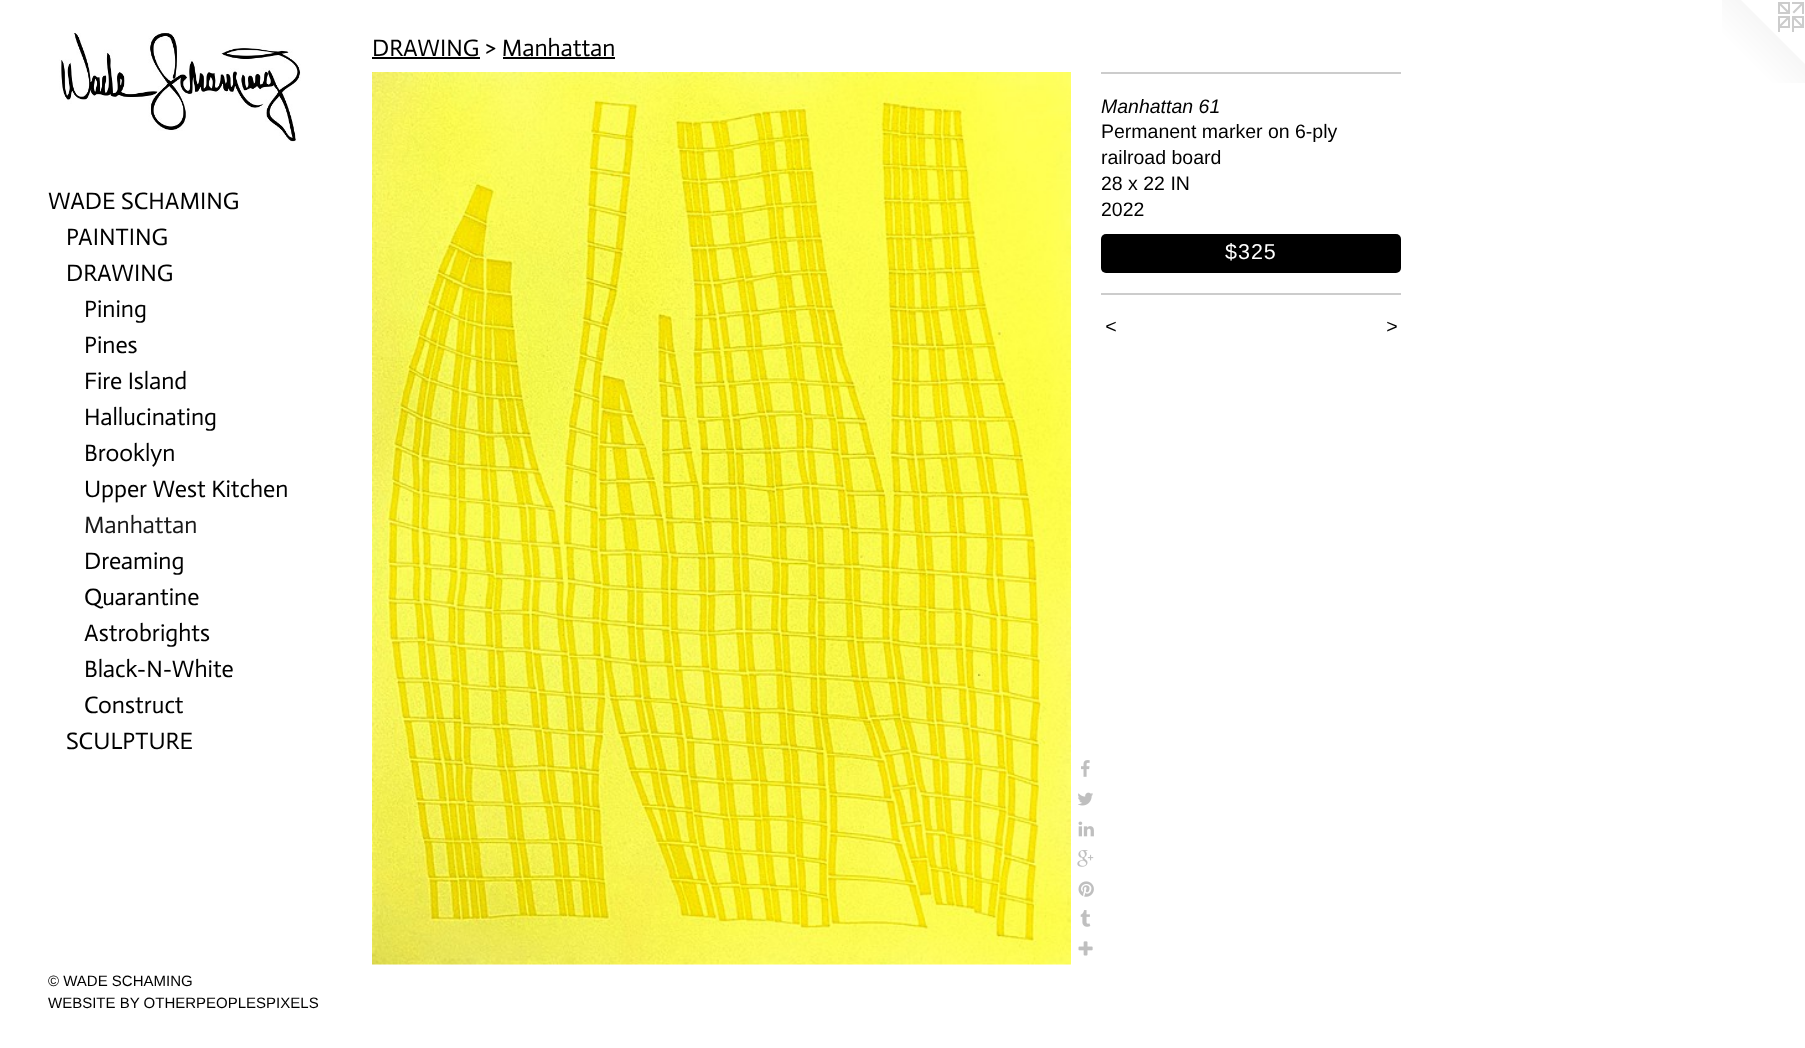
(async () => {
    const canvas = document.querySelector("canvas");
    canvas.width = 1805;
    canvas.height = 1048;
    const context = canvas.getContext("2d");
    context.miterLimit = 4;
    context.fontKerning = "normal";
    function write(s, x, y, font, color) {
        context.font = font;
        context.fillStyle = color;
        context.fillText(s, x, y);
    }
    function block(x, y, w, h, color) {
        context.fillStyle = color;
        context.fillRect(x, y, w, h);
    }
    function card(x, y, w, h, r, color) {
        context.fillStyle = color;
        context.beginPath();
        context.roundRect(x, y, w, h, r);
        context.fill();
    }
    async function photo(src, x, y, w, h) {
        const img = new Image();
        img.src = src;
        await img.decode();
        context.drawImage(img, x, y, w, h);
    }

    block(0, 0, 1805, 1048, "rgb(255, 255, 255)");
    await photo("media/1.png", 59, 33, 242, 109);
    write("WADE SCHAMING", 48, 209, "24px Actor", "rgb(0, 0, 0)");
    write("PAINTING", 66, 245, "24px Actor", "rgb(0, 0, 0)");
    write("DRAWING", 66, 281, "24px Actor", "rgb(0, 0, 0)");
    write("Pining", 84, 317, "24px Actor", "rgb(0, 0, 0)");
    write("Pines", 84, 353, "24px Actor", "rgb(0, 0, 0)");
    write("Fire Island", 84, 389, "24px Actor", "rgb(0, 0, 0)");
    write("Hallucinating", 84, 425, "24px Actor", "rgb(0, 0, 0)");
    write("Brooklyn", 84, 461, "24px Actor", "rgb(0, 0, 0)");
    write("Upper West Kitchen", 84, 497, "24px Actor", "rgb(0, 0, 0)");
    write("Manhattan", 84, 533, "24px Actor", "rgb(26, 26, 26)");
    write("Dreaming", 84, 569, "24px Actor", "rgb(0, 0, 0)");
    write("Quarantine", 84, 605, "24px Actor", "rgb(0, 0, 0)");
    write("Astrobrights", 84, 641, "24px Actor", "rgb(0, 0, 0)");
    write("Black-N-White", 84, 677, "24px Actor", "rgb(0, 0, 0)");
    write("Construct", 84, 713, "24px Actor", "rgb(0, 0, 0)");
    write("SCULPTURE", 66, 749, "24px Actor", "rgb(0, 0, 0)");
    write("© WADE SCHAMING", 48, 986, "15px Liberation Sans", "rgb(0, 0, 0)");
    write("WEBSITE BY OTHERPEOPLESPIXELS", 48, 1008, "15px Liberation Sans", "rgb(0, 0, 0)");
    write("DRAWING > Manhattan", 372, 56, "24px Actor", "rgb(0, 0, 0)");
    block(372, 57, 108, 2, "rgb(0, 0, 0)");
    block(503, 57, 112, 2, "rgb(0, 0, 0)");
    await photo("media/2.png", 372, 72, 699, 893);
    await photo("media/3.png", 1081, 760, 9, 17);
    await photo("media/4.png", 1078, 792, 15, 14);
    await photo("media/5.png", 1078, 821, 16, 16);
    await photo("media/6.png", 1077, 850, 17, 17);
    await photo("media/7.png", 1078, 881, 16, 16);
    await photo("media/8.png", 1080, 910, 11, 17);
    await photo("media/9.png", 1078, 941, 15, 15);
    block(1101, 72, 300, 2, "rgb(204, 204, 204)");
    write("Manhattan 61", 1101, 113, "italic 19.5px Liberation Sans", "rgb(0, 0, 0)");
    write("Permanent marker on 6-ply", 1101, 138, "19.5px Liberation Sans", "rgb(0, 0, 0)");
    write("railroad board", 1101, 164, "19.5px Liberation Sans", "rgb(0, 0, 0)");
    write("28 x 22 IN", 1101, 190, "19.5px Liberation Sans", "rgb(0, 0, 0)");
    write("2022", 1101, 216, "19.5px Liberation Sans", "rgb(0, 0, 0)");
    card(1101, 234, 300, 39, 5, "rgb(0, 0, 0)");
    context.letterSpacing = "1px";
    write("$325", 1225, 259, "21.5px Liberation Sans", "rgb(255, 255, 255)");
    block(1101, 293, 300, 2, "rgb(204, 204, 204)");
    context.letterSpacing = "2px";
    write("<", 1105, 333, "italic 19.5px Liberation Sans", "rgb(0, 0, 0)");
    write(">", 1386, 333, "italic 19.5px Liberation Sans", "rgb(0, 0, 0)");
    await photo("media/10.png", 1722, 0, 83, 83);
})();
